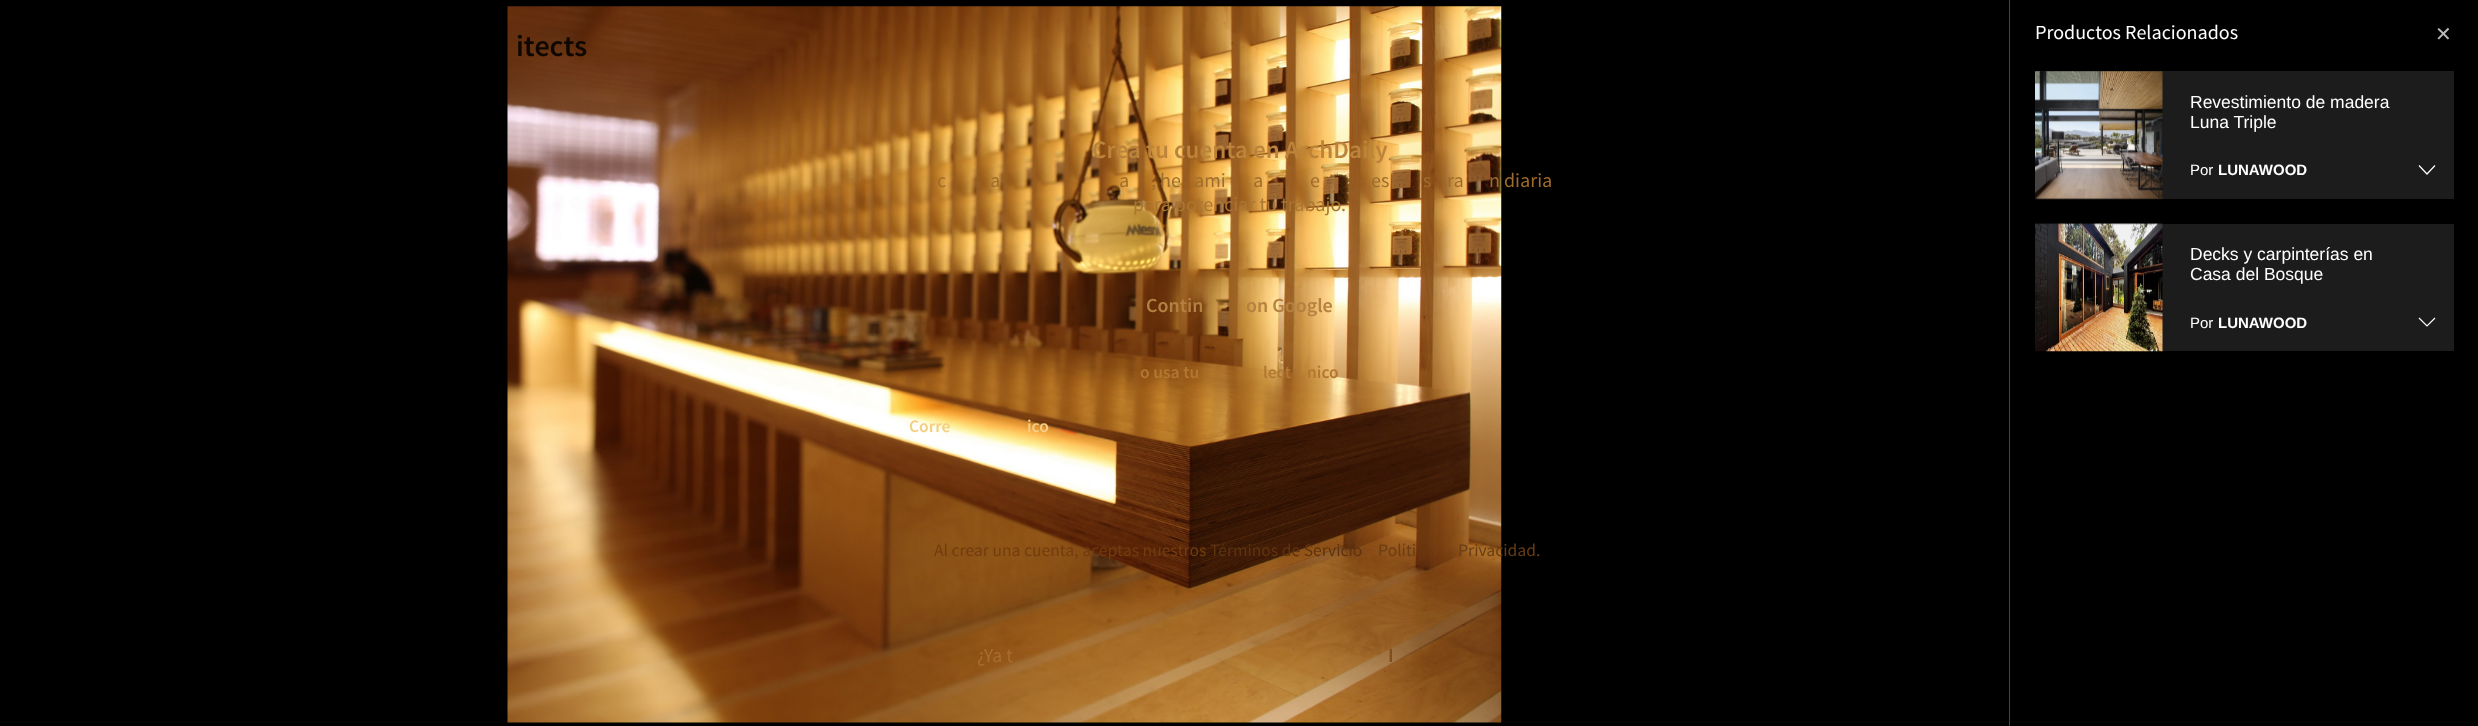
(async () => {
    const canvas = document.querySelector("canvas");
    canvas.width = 2478;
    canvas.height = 726;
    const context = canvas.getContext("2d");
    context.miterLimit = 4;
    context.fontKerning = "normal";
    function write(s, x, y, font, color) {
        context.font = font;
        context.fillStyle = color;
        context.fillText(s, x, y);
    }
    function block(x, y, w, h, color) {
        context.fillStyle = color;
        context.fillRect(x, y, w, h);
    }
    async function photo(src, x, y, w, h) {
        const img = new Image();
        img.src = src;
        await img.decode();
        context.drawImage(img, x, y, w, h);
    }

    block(0, 0, 2478, 726, "rgb(0, 0, 0)");
    await photo("media/1.png", 507, 6, 995, 717);
    write("itects", 516, 56, "600 30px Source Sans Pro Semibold", "rgb(15, 7, 2)");
    block(2009, 0, 1, 726, "rgb(68, 68, 68)");
    write("Productos Relacionados", 2035, 39, "20px Source Sans Pro", "rgb(255, 255, 255)");
    block(2035, 71, 419, 128, "rgb(28, 28, 28)");
    await photo("media/2.png", 2035, 71, 128, 129);
    write("Revestimiento de madera", 2190, 108, "17.5px Liberation Sans", "rgb(255, 255, 255)");
    write("Luna Triple", 2190, 128, "17.5px Liberation Sans", "rgb(255, 255, 255)");
    write("Por", 2190, 175, "15px Liberation Sans", "rgb(255, 255, 255)");
    write("LUNAWOOD", 2218, 175, "bold 15px Liberation Sans", "rgb(255, 255, 255)");
    context.beginPath();
    context.moveTo(2419, 165.5);
    context.lineTo(2427, 174);
    context.lineTo(2435, 165.5);
    context.strokeStyle = "rgb(255, 255, 255)";
    context.lineWidth = 1.2;
    context.stroke();
    block(2035, 224, 419, 127, "rgb(28, 28, 28)");
    await photo("media/3.png", 2035, 223, 128, 129);
    write("Decks y carpinterías en", 2190, 260, "17.5px Liberation Sans", "rgb(255, 255, 255)");
    write("Casa del Bosque", 2190, 280, "17.5px Liberation Sans", "rgb(255, 255, 255)");
    write("Por", 2190, 328, "15px Liberation Sans", "rgb(255, 255, 255)");
    write("LUNAWOOD", 2218, 328, "bold 15px Liberation Sans", "rgb(255, 255, 255)");
    context.beginPath();
    context.moveTo(2419, 318);
    context.lineTo(2427, 326);
    context.lineTo(2435, 318);
    context.stroke();
    write("✕", 2435, 41, "20px DejaVu Sans", "rgb(187, 187, 187)");
    write("Crea tu cuenta en ArchDaily", 1092, 158, "600 25px Source Sans Pro Semibold", "rgb(188, 132, 59)");
    write("c", 937, 187, "20px Source Sans Pro", "rgb(160, 108, 43)");
    write("a", 990, 187, "20px Source Sans Pro", "rgb(160, 108, 43)");
    write("a", 1119, 187, "20px Source Sans Pro", "rgb(160, 108, 43)");
    write(", he", 1151, 187, "20px Source Sans Pro", "rgb(160, 108, 43)");
    write("ami", 1194, 187, "20px Source Sans Pro", "rgb(160, 108, 43)");
    write("a", 1253, 187, "20px Source Sans Pro", "rgb(160, 108, 43)");
    write("e", 1310, 187, "20px Source Sans Pro", "rgb(160, 108, 43)");
    write("es", 1371, 187, "20px Source Sans Pro", "rgb(160, 108, 43)");
    write("s", 1423, 187, "20px Source Sans Pro", "rgb(160, 108, 43)");
    write("ra", 1447, 187, "20px Source Sans Pro", "rgb(160, 108, 43)");
    write("n diaria", 1489, 187, "20px Source Sans Pro", "rgb(160, 108, 43)");
    write("para potenciar tu trabajo.", 1133, 211, "20px Source Sans Pro", "rgb(170, 118, 52)");
    write("Contin", 1146, 312, "600 20px Source Sans Pro Semibold", "rgb(180, 129, 65)");
    write("on Google", 1246, 312, "600 20px Source Sans Pro Semibold", "rgb(180, 129, 65)");
    write("o usa tu", 1140, 378, "600 17.5px Source Sans Pro Semibold", "rgb(178, 120, 50)");
    write("lect", 1263, 378, "600 17.5px Source Sans Pro Semibold", "rgb(178, 120, 50)");
    write("nico", 1307, 378, "600 17.5px Source Sans Pro Semibold", "rgb(178, 120, 50)");
    write("Corre", 909, 432, "600 17.5px Source Sans Pro Semibold", "rgb(244, 206, 131)");
    write("ico", 1027, 432, "600 17.5px Source Sans Pro Semibold", "rgb(244, 206, 131)");
    write("Al crear una cuenta, aceptas nuestros", 934, 556, "17.5px Source Sans Pro", "rgb(114, 60, 15)");
    write("Términos de Servicio", 1210, 556, "17.5px Source Sans Pro", "rgb(96, 51, 15)");
    write("Políti", 1378, 556, "17.5px Source Sans Pro", "rgb(106, 61, 20)");
    write("Privacidad.", 1458, 556, "17.5px Source Sans Pro", "rgb(106, 61, 20)");
    write("¿Ya t", 977, 662, "20px Source Sans Pro", "rgb(167, 110, 44)");
    write("I", 1388, 662, "600 20px Source Sans Pro Semibold", "rgb(130, 77, 28)");
})();
